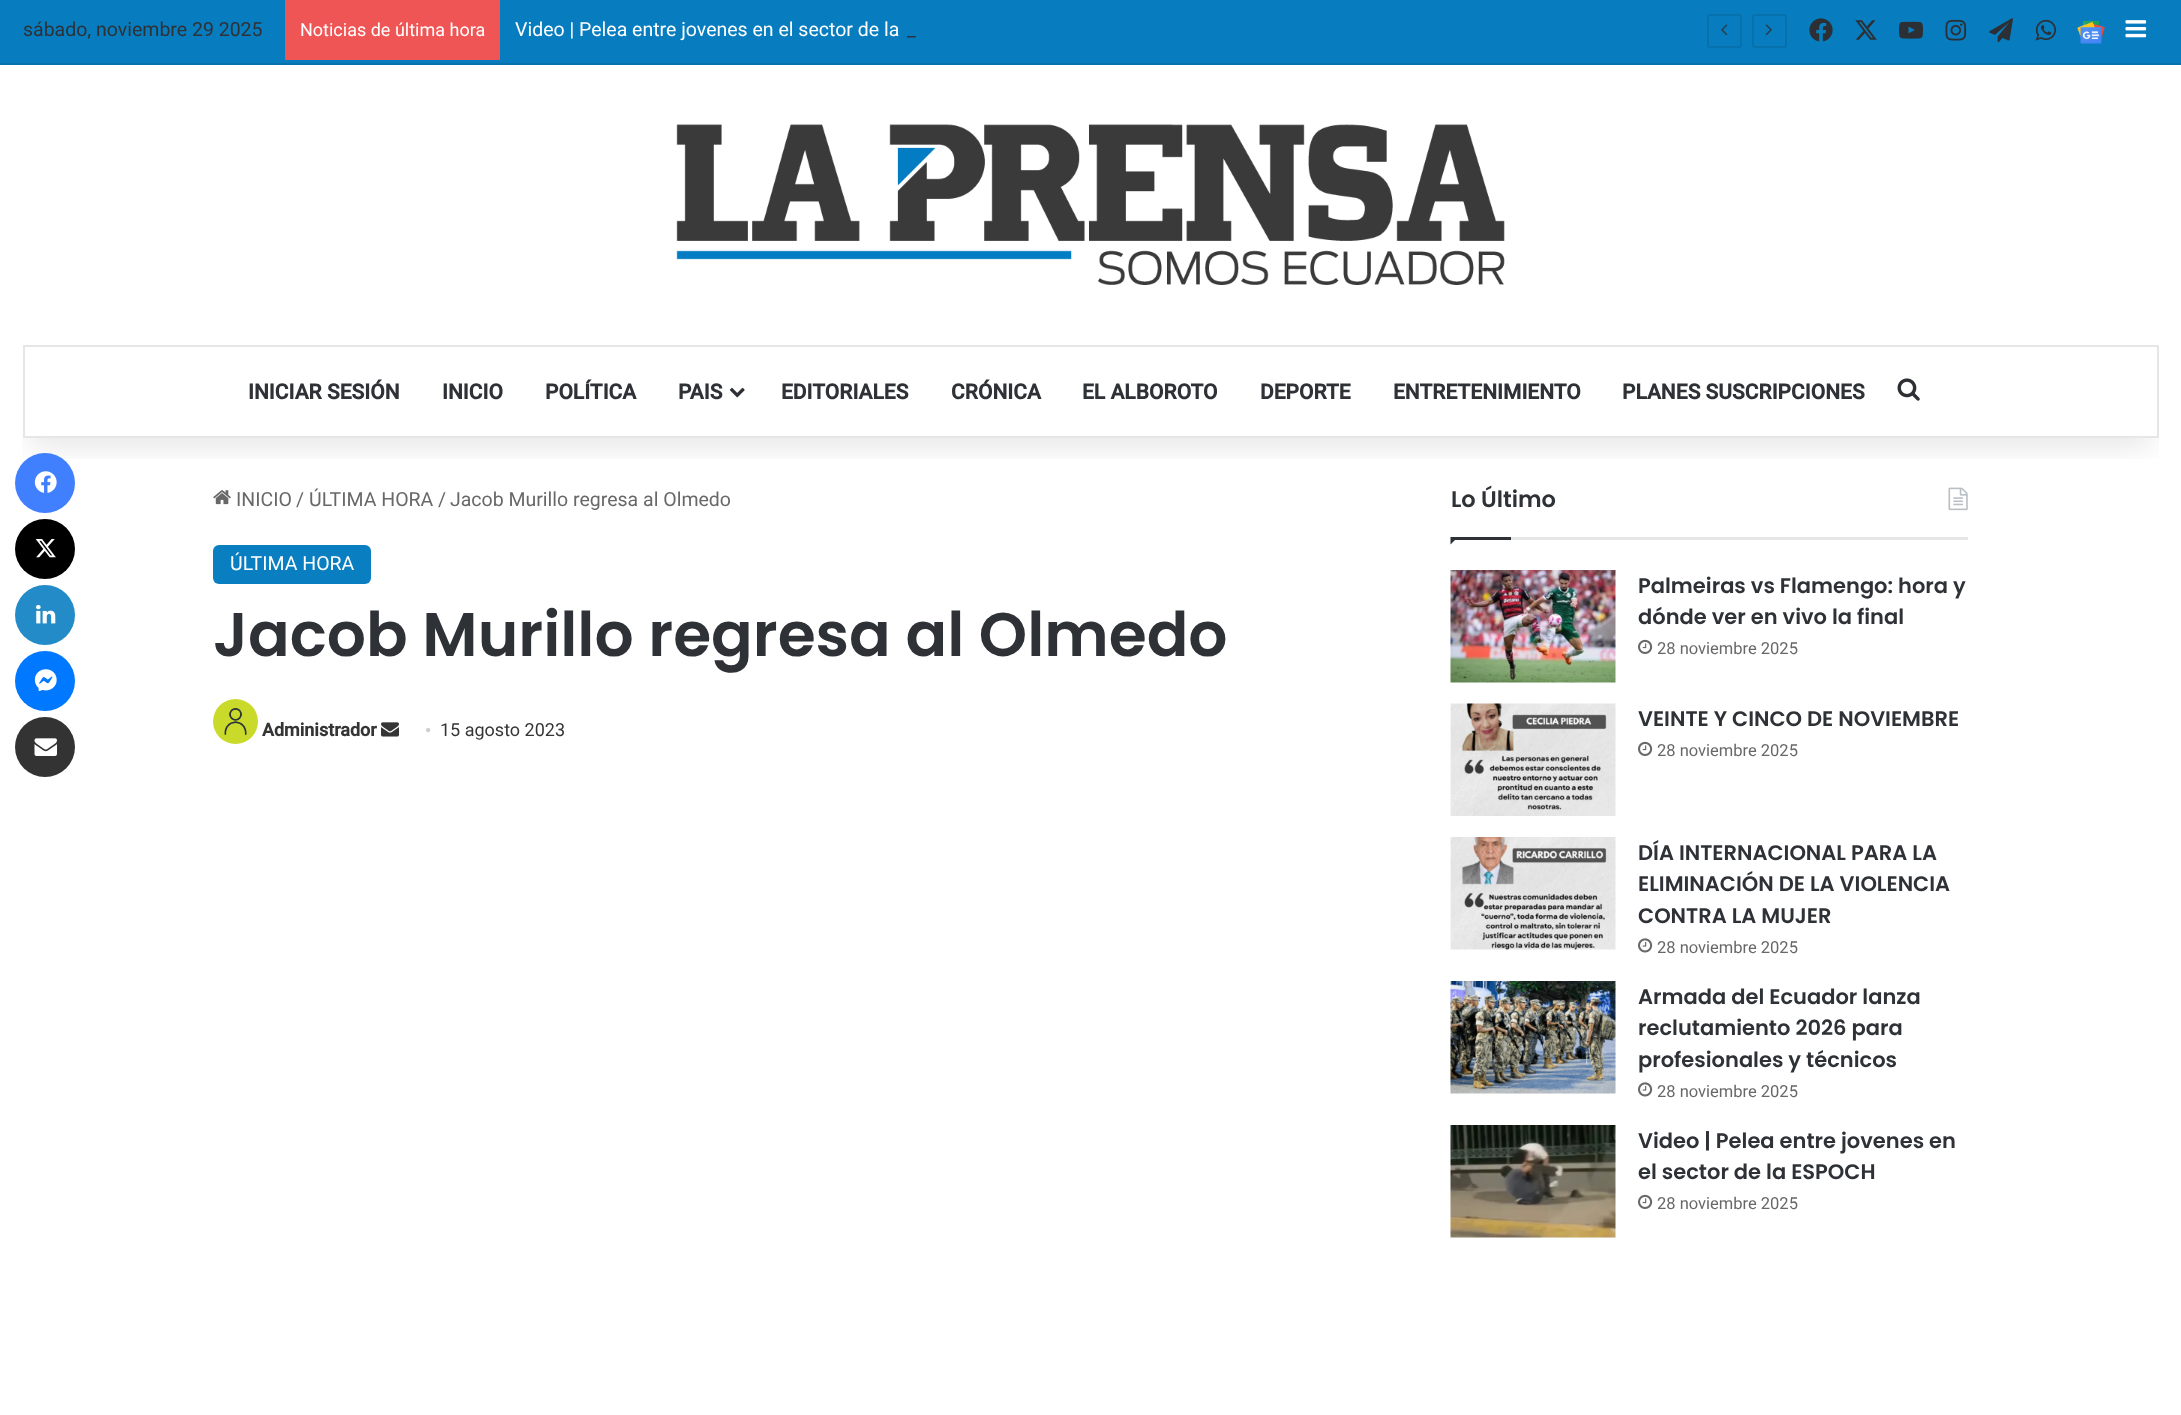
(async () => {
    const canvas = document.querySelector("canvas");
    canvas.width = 2181;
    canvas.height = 1415;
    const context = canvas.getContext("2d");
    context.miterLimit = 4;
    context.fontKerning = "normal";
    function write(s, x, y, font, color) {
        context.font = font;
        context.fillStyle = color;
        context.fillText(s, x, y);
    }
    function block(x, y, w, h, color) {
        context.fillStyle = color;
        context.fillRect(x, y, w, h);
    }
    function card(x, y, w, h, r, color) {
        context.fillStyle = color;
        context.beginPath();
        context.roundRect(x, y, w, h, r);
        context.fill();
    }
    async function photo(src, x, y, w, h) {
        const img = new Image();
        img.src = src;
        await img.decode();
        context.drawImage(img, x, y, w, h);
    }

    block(0, 0, 2181, 1415, "rgb(255, 255, 255)");
    await photo("media/19.png", 213, 490, 18, 15);
    await photo("media/22.png", 1948, 487, 20, 24);
    context.save();
    context.beginPath();
    context.rect(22, 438, 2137, 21);
    context.clip();
    context.fillStyle = "rgba(0, 0, 0, 0.1)";
    context.filter = "blur(15px)";
    context.beginPath();
    context.rect(30, 68, 2121, 378);
    context.fill();
    context.filter = "none";
    context.restore();
    block(0, 0, 2181, 63, "rgb(7, 125, 191)");
    block(0, 63, 2181, 2, "rgb(6, 113, 172)");
    write("sábado, noviembre 29 2025", 23, 36, "19.5px Roboto", "rgb(46, 49, 54)");
    block(285, 0, 215, 60, "rgb(240, 85, 85)");
    write("Noticias de última hora", 300, 36, "18px Roboto", "rgb(255, 255, 255)");
    write("Video | Pelea entre jovenes en el sector de la", 515, 36, "19.5px Roboto", "rgb(255, 255, 255)");
    write("_", 907, 36, "19.5px Roboto", "rgb(46, 49, 54)");
    context.beginPath();
    context.roundRect(1708, 15, 33, 32, 2);
    context.strokeStyle = "rgb(6, 113, 172)";
    context.lineWidth = 2;
    context.stroke();
    await photo("media/1.png", 1721, 24, 7, 12);
    context.beginPath();
    context.roundRect(1753, 15, 33, 32, 2);
    context.stroke();
    await photo("media/2.png", 1765, 24, 7, 12);
    await photo("media/3.png", 1809, 18, 24, 24);
    await photo("media/4.png", 1855, 20, 22, 20);
    await photo("media/5.png", 1899, 21, 24, 18);
    await photo("media/6.png", 1945, 19, 22, 22);
    await photo("media/7.png", 1989, 18, 24, 25);
    await photo("media/8.png", 2035, 19, 22, 22);
    await photo("media/9.png", 2077, 21, 28, 23);
    await photo("media/10.png", 2125, 20, 22, 18);
    await photo("media/11.png", 676, 124, 829, 161);
    context.strokeStyle = "rgb(230, 230, 230)";
    context.strokeRect(24, 346, 2134, 91);
    write("INICIAR SESIÓN", 248, 399, "bold 21px Roboto", "rgb(46, 49, 54)");
    write("INICIO", 442, 399, "bold 21px Roboto", "rgb(46, 49, 54)");
    write("POLÍTICA", 545, 399, "bold 21px Roboto", "rgb(46, 49, 54)");
    write("PAIS", 678, 399, "bold 21px Roboto", "rgb(46, 49, 54)");
    await photo("media/12.png", 729, 387, 16, 11);
    write("EDITORIALES", 781, 399, "bold 21px Roboto", "rgb(46, 49, 54)");
    write("CRÓNICA", 951, 399, "bold 21px Roboto", "rgb(46, 49, 54)");
    write("EL ALBOROTO", 1082, 399, "bold 21px Roboto", "rgb(46, 49, 54)");
    write("DEPORTE", 1260, 399, "bold 21px Roboto", "rgb(46, 49, 54)");
    write("ENTRETENIMIENTO", 1393, 399, "bold 21px Roboto", "rgb(46, 49, 54)");
    write("PLANES SUSCRIPCIONES", 1622, 399, "bold 21px Roboto", "rgb(46, 49, 54)");
    await photo("media/13.png", 1897, 378, 23, 23);
    context.fillStyle = "rgb(64, 128, 255)";
    context.beginPath();
    context.arc(45, 483, 30, 0, Math.PI * 2);
    context.fill();
    await photo("media/14.png", 34, 471, 23, 22);
    context.fillStyle = "rgb(0, 0, 0)";
    context.beginPath();
    context.arc(45, 549, 30, 0, Math.PI * 2);
    context.fill();
    await photo("media/15.png", 35, 539, 21, 19);
    context.fillStyle = "rgb(35, 140, 200)";
    context.beginPath();
    context.arc(45, 615, 30, 0, Math.PI * 2);
    context.fill();
    await photo("media/16.png", 36, 605, 20, 19);
    context.fillStyle = "rgb(0, 120, 255)";
    context.beginPath();
    context.arc(45, 681, 30, 0, Math.PI * 2);
    context.fill();
    await photo("media/17.png", 34, 669, 23, 22);
    context.fillStyle = "rgb(51, 51, 51)";
    context.beginPath();
    context.arc(45, 747, 30, 0, Math.PI * 2);
    context.fill();
    await photo("media/18.png", 34, 738, 23, 18);
    write("INICIO", 236, 506, "19.5px Roboto", "rgb(104, 104, 104)");
    write("/", 296, 506, "19.5px Roboto", "rgb(104, 104, 104)");
    write("ÚLTIMA HORA", 309, 506, "19.5px Roboto", "rgb(104, 104, 104)");
    write("/", 438, 506, "19.5px Roboto", "rgb(104, 104, 104)");
    write("Jacob Murillo regresa al Olmedo", 450, 506, "19.5px Roboto", "rgb(104, 104, 104)");
    card(213, 545, 158, 39, 6, "rgb(9, 126, 192)");
    write("ÚLTIMA HORA", 230, 570, "19.5px Roboto", "rgb(255, 255, 255)");
    write("Jacob Murillo regresa al Olmedo", 213, 656, "600 61.5px Poppins", "rgb(46, 49, 54)");
    await photo("media/20.png", 213, 699, 45, 45);
    write("Administrador", 262, 736, "bold 18px Roboto", "rgb(53, 53, 53)");
    await photo("media/21.png", 381, 722, 18, 15);
    write("•", 425, 736, "18px Liberation Serif", "rgb(205, 205, 205)");
    write("15 agosto 2023", 440, 736, "18px Roboto", "rgb(53, 53, 53)");
    block(1511, 537, 457, 3, "rgb(230, 230, 230)");
    write("Lo Último", 1451, 507, "600 22.5px Poppins", "rgb(46, 49, 54)");
    context.beginPath();
    context.moveTo(1450.5, 537);
    context.lineTo(1458, 537);
    context.lineTo(1450.5, 544.5);
    context.closePath();
    context.fill();
    block(1451, 537, 60, 3, "rgb(46, 49, 54)");
    await photo("media/23.png", 1450, 570, 166, 113);
    write("Palmeiras vs Flamengo: hora y", 1638, 593, "600 21px Poppins", "rgb(46, 49, 54)");
    write("dónde ver en vivo la final", 1638, 624, "600 21px Poppins", "rgb(46, 49, 54)");
    await photo("media/24.png", 1638, 639, 15, 15);
    write("28 noviembre 2025", 1657, 654, "16.5px Roboto", "rgb(104, 104, 104)");
    await photo("media/25.png", 1450, 703, 166, 113);
    write("VEINTE Y CINCO DE NOVIEMBRE", 1638, 726, "600 21px Poppins", "rgb(46, 49, 54)");
    await photo("media/24.png", 1638, 741, 15, 15);
    write("28 noviembre 2025", 1657, 756, "16.5px Roboto", "rgb(104, 104, 104)");
    await photo("media/26.png", 1450, 837, 166, 113);
    write("DÍA INTERNACIONAL PARA LA", 1638, 860, "600 21px Poppins", "rgb(46, 49, 54)");
    write("ELIMINACIÓN DE LA VIOLENCIA", 1638, 891, "600 21px Poppins", "rgb(46, 49, 54)");
    write("CONTRA LA MUJER", 1638, 923, "600 21px Poppins", "rgb(46, 49, 54)");
    await photo("media/27.png", 1638, 938, 15, 15);
    write("28 noviembre 2025", 1657, 953, "16.5px Roboto", "rgb(104, 104, 104)");
    await photo("media/28.png", 1450, 981, 166, 113);
    write("Armada del Ecuador lanza", 1638, 1004, "600 21px Poppins", "rgb(46, 49, 54)");
    write("reclutamiento 2026 para", 1638, 1035, "600 21px Poppins", "rgb(46, 49, 54)");
    write("profesionales y técnicos", 1638, 1067, "600 21px Poppins", "rgb(46, 49, 54)");
    await photo("media/27.png", 1638, 1082, 15, 15);
    write("28 noviembre 2025", 1657, 1097, "16.5px Roboto", "rgb(104, 104, 104)");
    await photo("media/29.png", 1450, 1125, 166, 113);
    write("Video | Pelea entre jovenes en", 1638, 1148, "600 21px Poppins", "rgb(46, 49, 54)");
    write("el sector de la ESPOCH", 1638, 1179, "600 21px Poppins", "rgb(46, 49, 54)");
    await photo("media/24.png", 1638, 1194, 15, 15);
    write("28 noviembre 2025", 1657, 1209, "16.5px Roboto", "rgb(104, 104, 104)");
})();
